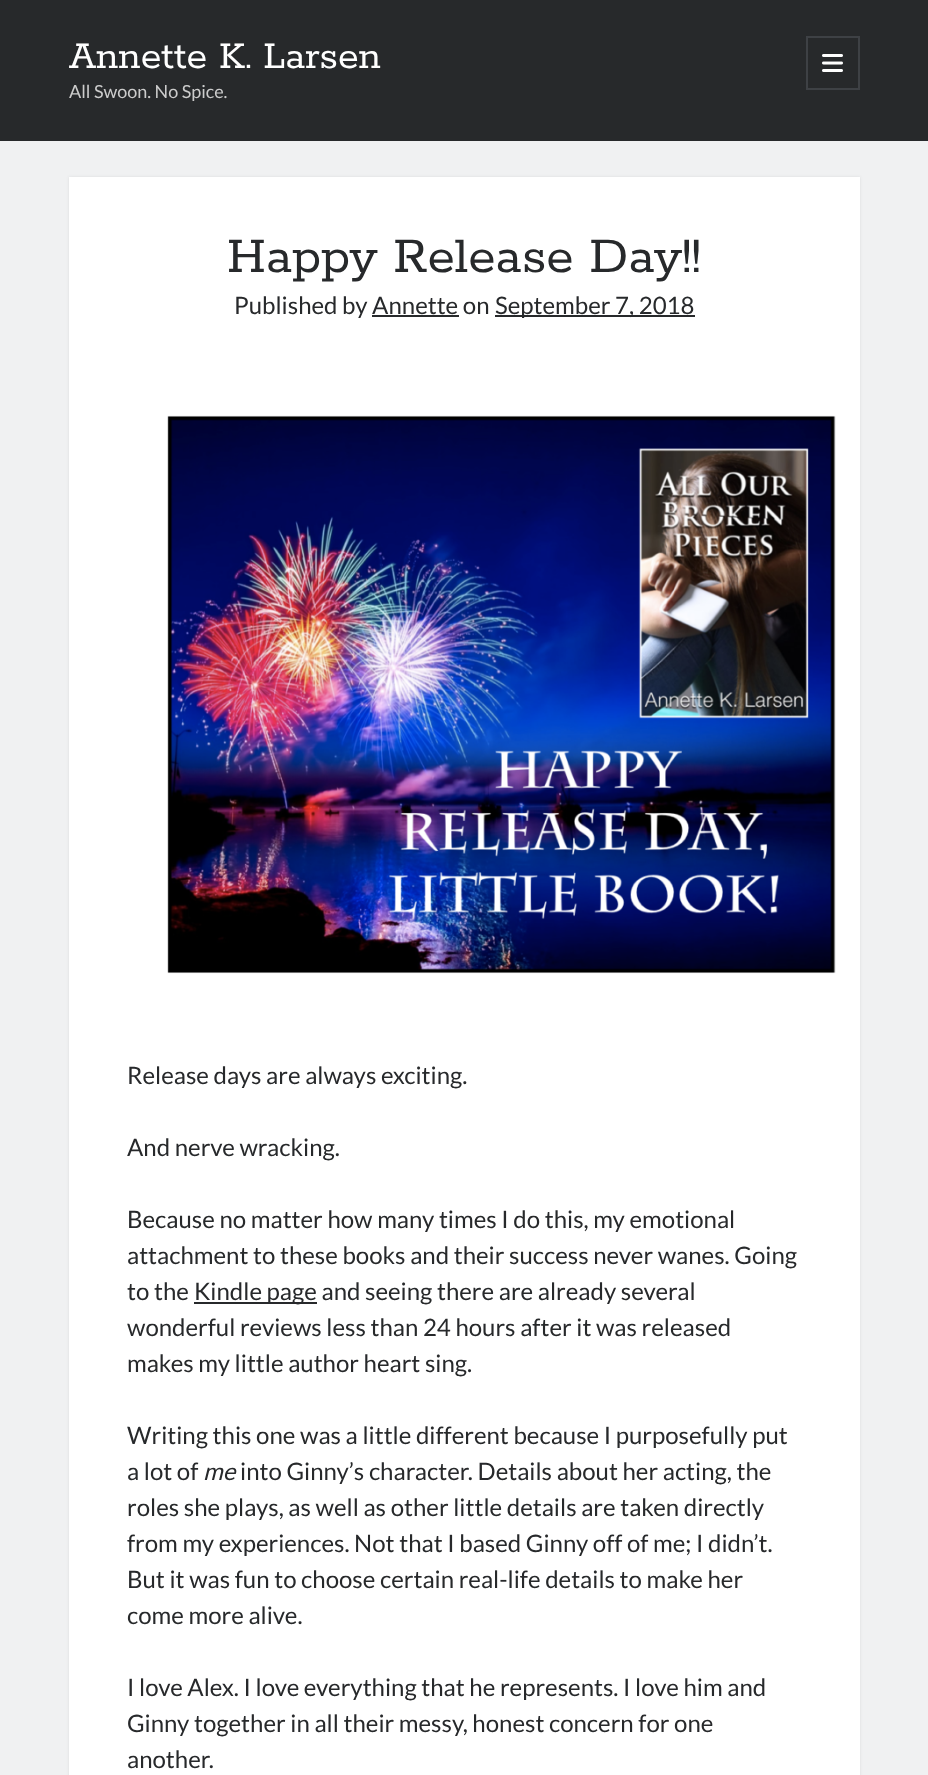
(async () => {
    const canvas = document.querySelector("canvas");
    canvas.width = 928;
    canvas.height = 1775;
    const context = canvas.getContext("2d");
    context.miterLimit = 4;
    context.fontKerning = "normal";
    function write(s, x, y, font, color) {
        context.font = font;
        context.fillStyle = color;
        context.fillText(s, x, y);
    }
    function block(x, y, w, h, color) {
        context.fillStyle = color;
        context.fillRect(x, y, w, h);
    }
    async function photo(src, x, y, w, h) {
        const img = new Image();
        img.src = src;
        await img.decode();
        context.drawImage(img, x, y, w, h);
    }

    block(0, 0, 928, 1775, "rgb(39, 41, 43)");
    write("Annette K. Larsen", 69, 68, "42px Rokkitt", "rgb(255, 255, 255)");
    write("All Swoon. No Spice.", 69, 98, "18px Lato", "rgb(204, 204, 204)");
    context.strokeStyle = "rgb(62, 65, 69)";
    context.lineWidth = 2;
    context.strokeRect(807, 37, 52, 52);
    await photo("media/1.png", 822, 54, 21, 18);
    block(0, 141, 928, 1634, "rgb(240, 241, 242)");
    context.fillStyle = "rgba(39, 43, 47, 0.1)";
    context.filter = "blur(1.5px)";
    context.beginPath();
    context.rect(69, 177, 791, 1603);
    context.fill();
    context.filter = "none";
    block(69, 177, 791, 1598, "rgb(255, 255, 255)");
    write("Happy Release Day!!", 227, 272, "55.5px Rokkitt", "rgb(39, 41, 43)");
    write("Published by Annette on", 234, 314, "24px Lato", "rgb(39, 41, 43)");
    block(372, 315, 87, 2, "rgb(39, 41, 43)");
    block(495, 315, 200, 2, "rgb(39, 41, 43)");
    write("September 7, 2018", 495, 314, "24px Lato", "rgb(39, 41, 43)");
    await photo("media/2.png", 167, 415, 669, 559);
    write("Release days are always exciting.", 127, 1084, "24px Lato", "rgb(39, 41, 43)");
    write("And nerve wracking.", 127, 1156, "24px Lato", "rgb(39, 41, 43)");
    write("Because no matter how many times I do this, my emotional", 127, 1228, "24px Lato", "rgb(39, 41, 43)");
    write("attachment to these books and their success never wanes. Going", 127, 1264, "24px Lato", "rgb(39, 41, 43)");
    write("to the", 127, 1300, "24px Lato", "rgb(39, 41, 43)");
    block(194, 1302, 123, 2, "rgb(39, 41, 43)");
    write("Kindle page and seeing there are already several", 194, 1300, "24px Lato", "rgb(39, 41, 43)");
    write("wonderful reviews less than 24 hours after it was released", 127, 1336, "24px Lato", "rgb(39, 41, 43)");
    write("makes my little author heart sing.", 127, 1372, "24px Lato", "rgb(39, 41, 43)");
    write("Writing this one was a little different because I purposefully put", 127, 1444, "24px Lato", "rgb(39, 41, 43)");
    write("a lot of", 127, 1480, "24px Lato", "rgb(39, 41, 43)");
    write("me", 203, 1480, "italic 24px Lato", "rgb(39, 41, 43)");
    write("into Ginny’s character. Details about her acting, the", 240, 1480, "24px Lato", "rgb(39, 41, 43)");
    write("roles she plays, as well as other little details are taken directly", 127, 1516, "24px Lato", "rgb(39, 41, 43)");
    write("from my experiences. Not that I based Ginny off of me; I didn’t.", 127, 1552, "24px Lato", "rgb(39, 41, 43)");
    write("But it was fun to choose certain real-life details to make her", 127, 1588, "24px Lato", "rgb(39, 41, 43)");
    write("come more alive.", 127, 1624, "24px Lato", "rgb(39, 41, 43)");
    write("I love Alex. I love everything that he represents. I love him and", 127, 1696, "24px Lato", "rgb(39, 41, 43)");
    write("Ginny together in all their messy, honest concern for one", 127, 1732, "24px Lato", "rgb(39, 41, 43)");
    write("another.", 127, 1768, "24px Lato", "rgb(39, 41, 43)");
})();
